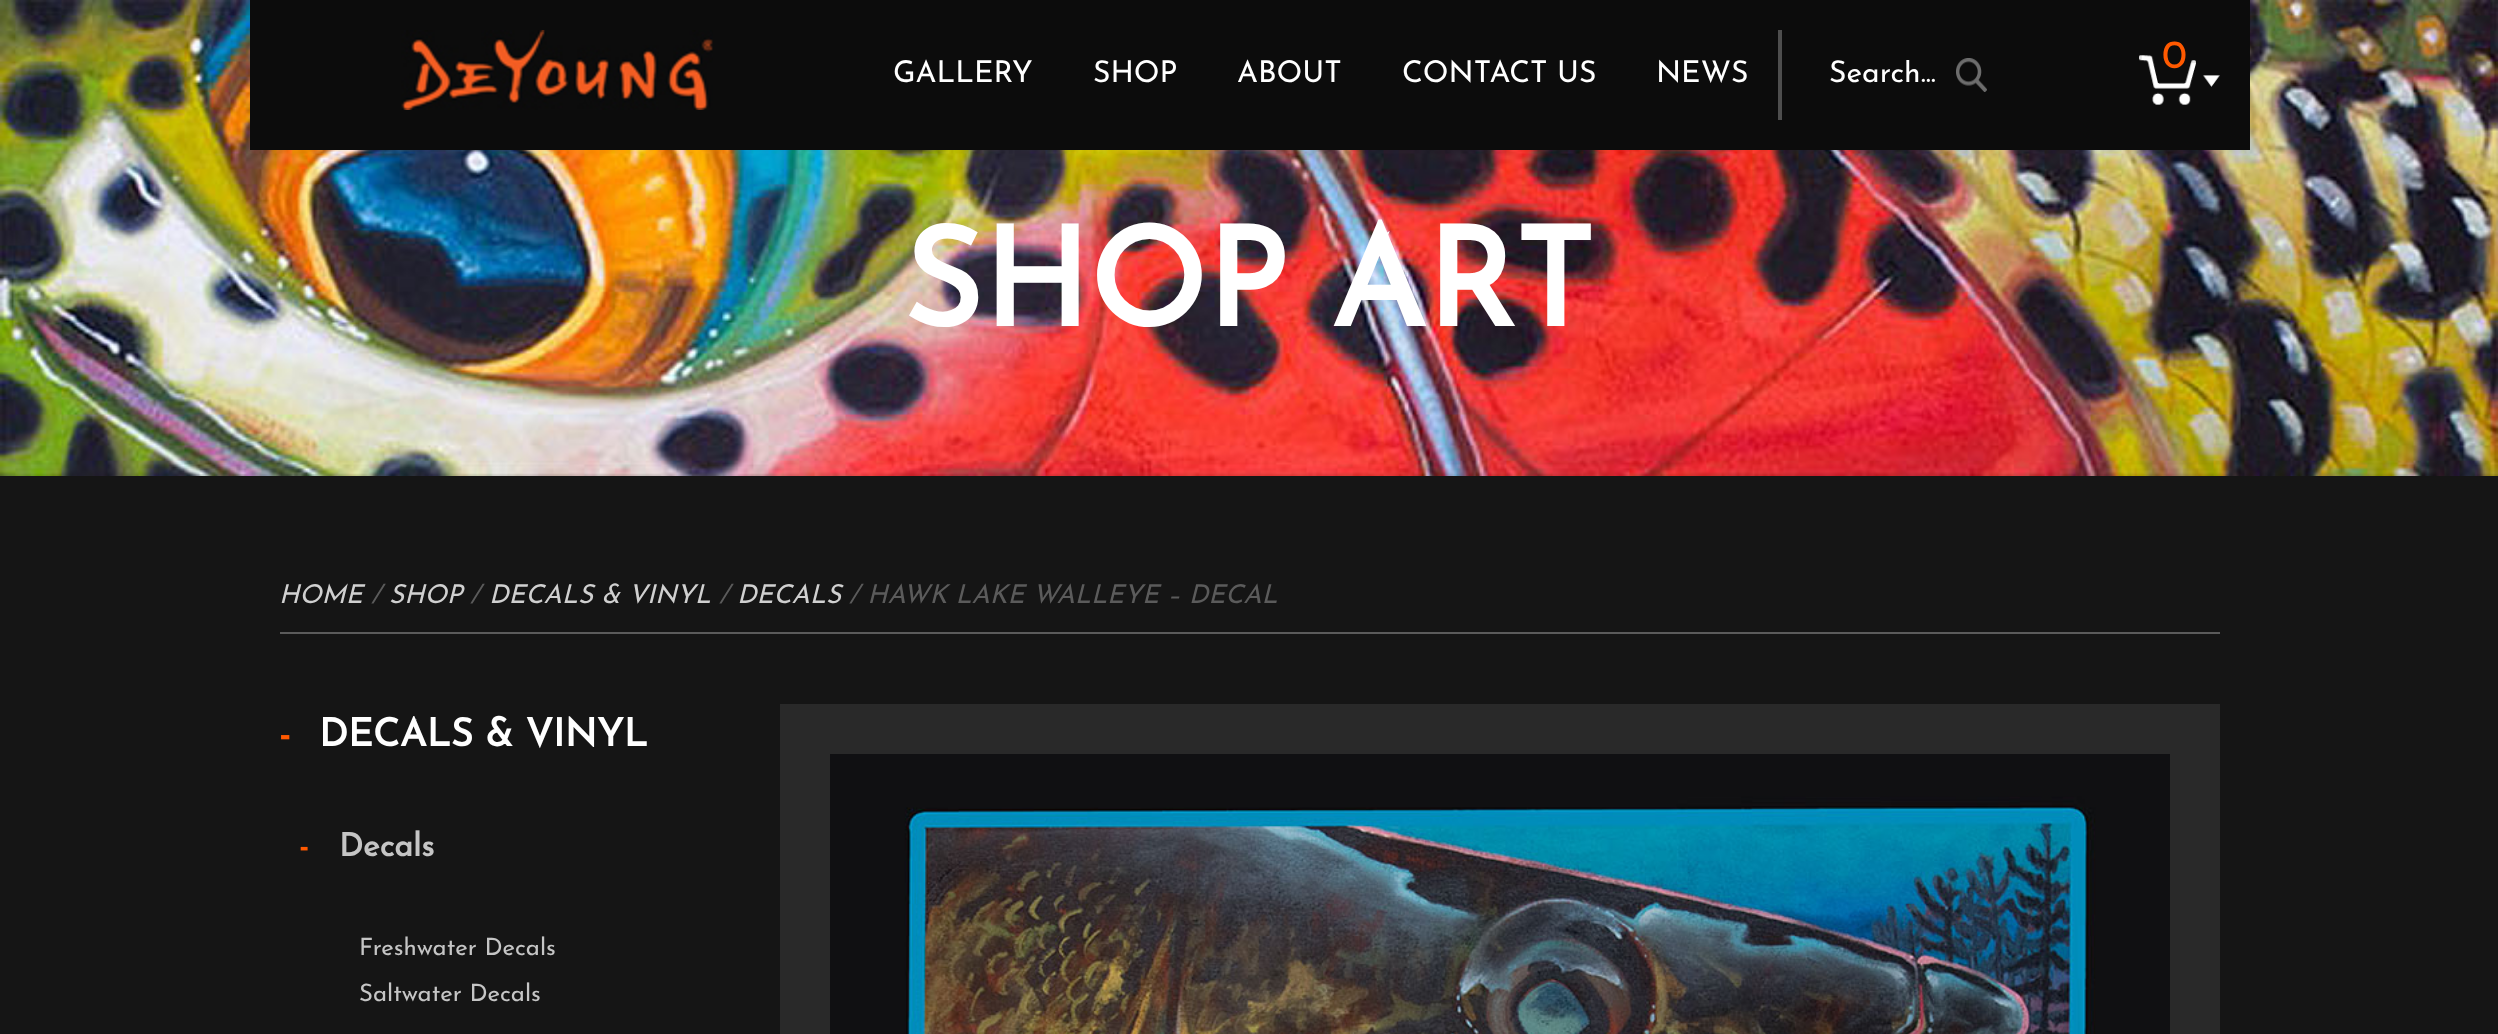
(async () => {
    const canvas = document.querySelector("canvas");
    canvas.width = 2498;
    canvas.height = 1034;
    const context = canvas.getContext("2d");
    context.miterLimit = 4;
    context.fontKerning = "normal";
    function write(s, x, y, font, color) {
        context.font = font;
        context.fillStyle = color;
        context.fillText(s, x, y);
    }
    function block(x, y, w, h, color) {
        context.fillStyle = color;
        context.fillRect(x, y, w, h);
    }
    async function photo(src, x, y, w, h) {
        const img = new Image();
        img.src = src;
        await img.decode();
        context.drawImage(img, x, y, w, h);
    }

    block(0, 0, 2498, 1034, "rgb(21, 21, 21)");
    await photo("media/4.png", 0, 0, 2498, 476);
    block(250, 0, 2000, 150, "rgb(12, 12, 12)");
    await photo("media/1.png", 401, 30, 312, 80);
    write("GALLERY", 893, 82, "100 30px Josefin Sans", "rgb(255, 255, 255)");
    write("SHOP", 1093, 82, "100 30px Josefin Sans", "rgb(255, 255, 255)");
    write("ABOUT", 1237, 82, "100 30px Josefin Sans", "rgb(255, 255, 255)");
    write("CONTACT US", 1402, 82, "100 30px Josefin Sans", "rgb(255, 255, 255)");
    write("NEWS", 1656, 82, "100 30px Josefin Sans", "rgb(255, 255, 255)");
    block(1778, 30, 4, 90, "rgb(78, 78, 78)");
    context.save();
    context.beginPath();
    context.rect(1828, 60, 112, 30);
    context.clip();
    write("Search...", 1829, 82, "100 30px Josefin Sans", "rgb(255, 255, 255)");
    context.restore();
    await photo("media/2.png", 1956, 58, 31, 34);
    await photo("media/3.png", 2139, 55, 81, 50);
    write("0", 2162, 68, "100 40px Josefin Sans", "rgb(255, 89, 0)");
    write("SHOP ART", 903, 326, "bold 136.5px Josefin Sans", "rgb(255, 255, 255)");
    block(280, 632, 1940, 2, "rgb(91, 91, 91)");
    write("HOME", 279, 603, "italic 100 26px Josefin Sans", "rgb(208, 208, 208)");
    write("/", 371, 603, "italic 100 26px Josefin Sans", "rgb(91, 91, 91)");
    write("SHOP", 389, 603, "italic 100 26px Josefin Sans", "rgb(208, 208, 208)");
    write("/", 470, 603, "italic 100 26px Josefin Sans", "rgb(91, 91, 91)");
    write("DECALS & VINYL", 489, 603, "italic 100 26px Josefin Sans", "rgb(208, 208, 208)");
    write("/", 719, 603, "italic 100 26px Josefin Sans", "rgb(91, 91, 91)");
    write("DECALS", 737, 603, "italic 100 26px Josefin Sans", "rgb(208, 208, 208)");
    write("/ HAWK LAKE WALLEYE – DECAL", 849, 603, "italic 100 26px Josefin Sans", "rgb(91, 91, 91)");
    write("-", 279, 746, "bold 38.5px Josefin Sans", "rgb(255, 89, 0)");
    write("DECALS & VINYL", 319, 746, "bold 38.5px Josefin Sans", "rgb(255, 255, 255)");
    write("-", 299, 856, "bold 32px Josefin Sans", "rgb(255, 89, 0)");
    write("Decals", 339, 856, "bold 32px Josefin Sans", "rgb(197, 197, 197)");
    write("Freshwater Decals", 359, 955, "100 24px Josefin Sans", "rgb(197, 197, 197)");
    write("Saltwater Decals", 359, 1001, "100 24px Josefin Sans", "rgb(197, 197, 197)");
    block(780, 704, 1440, 330, "rgb(41, 41, 41)");
    await photo("media/5.png", 830, 754, 1340, 280);
})();
